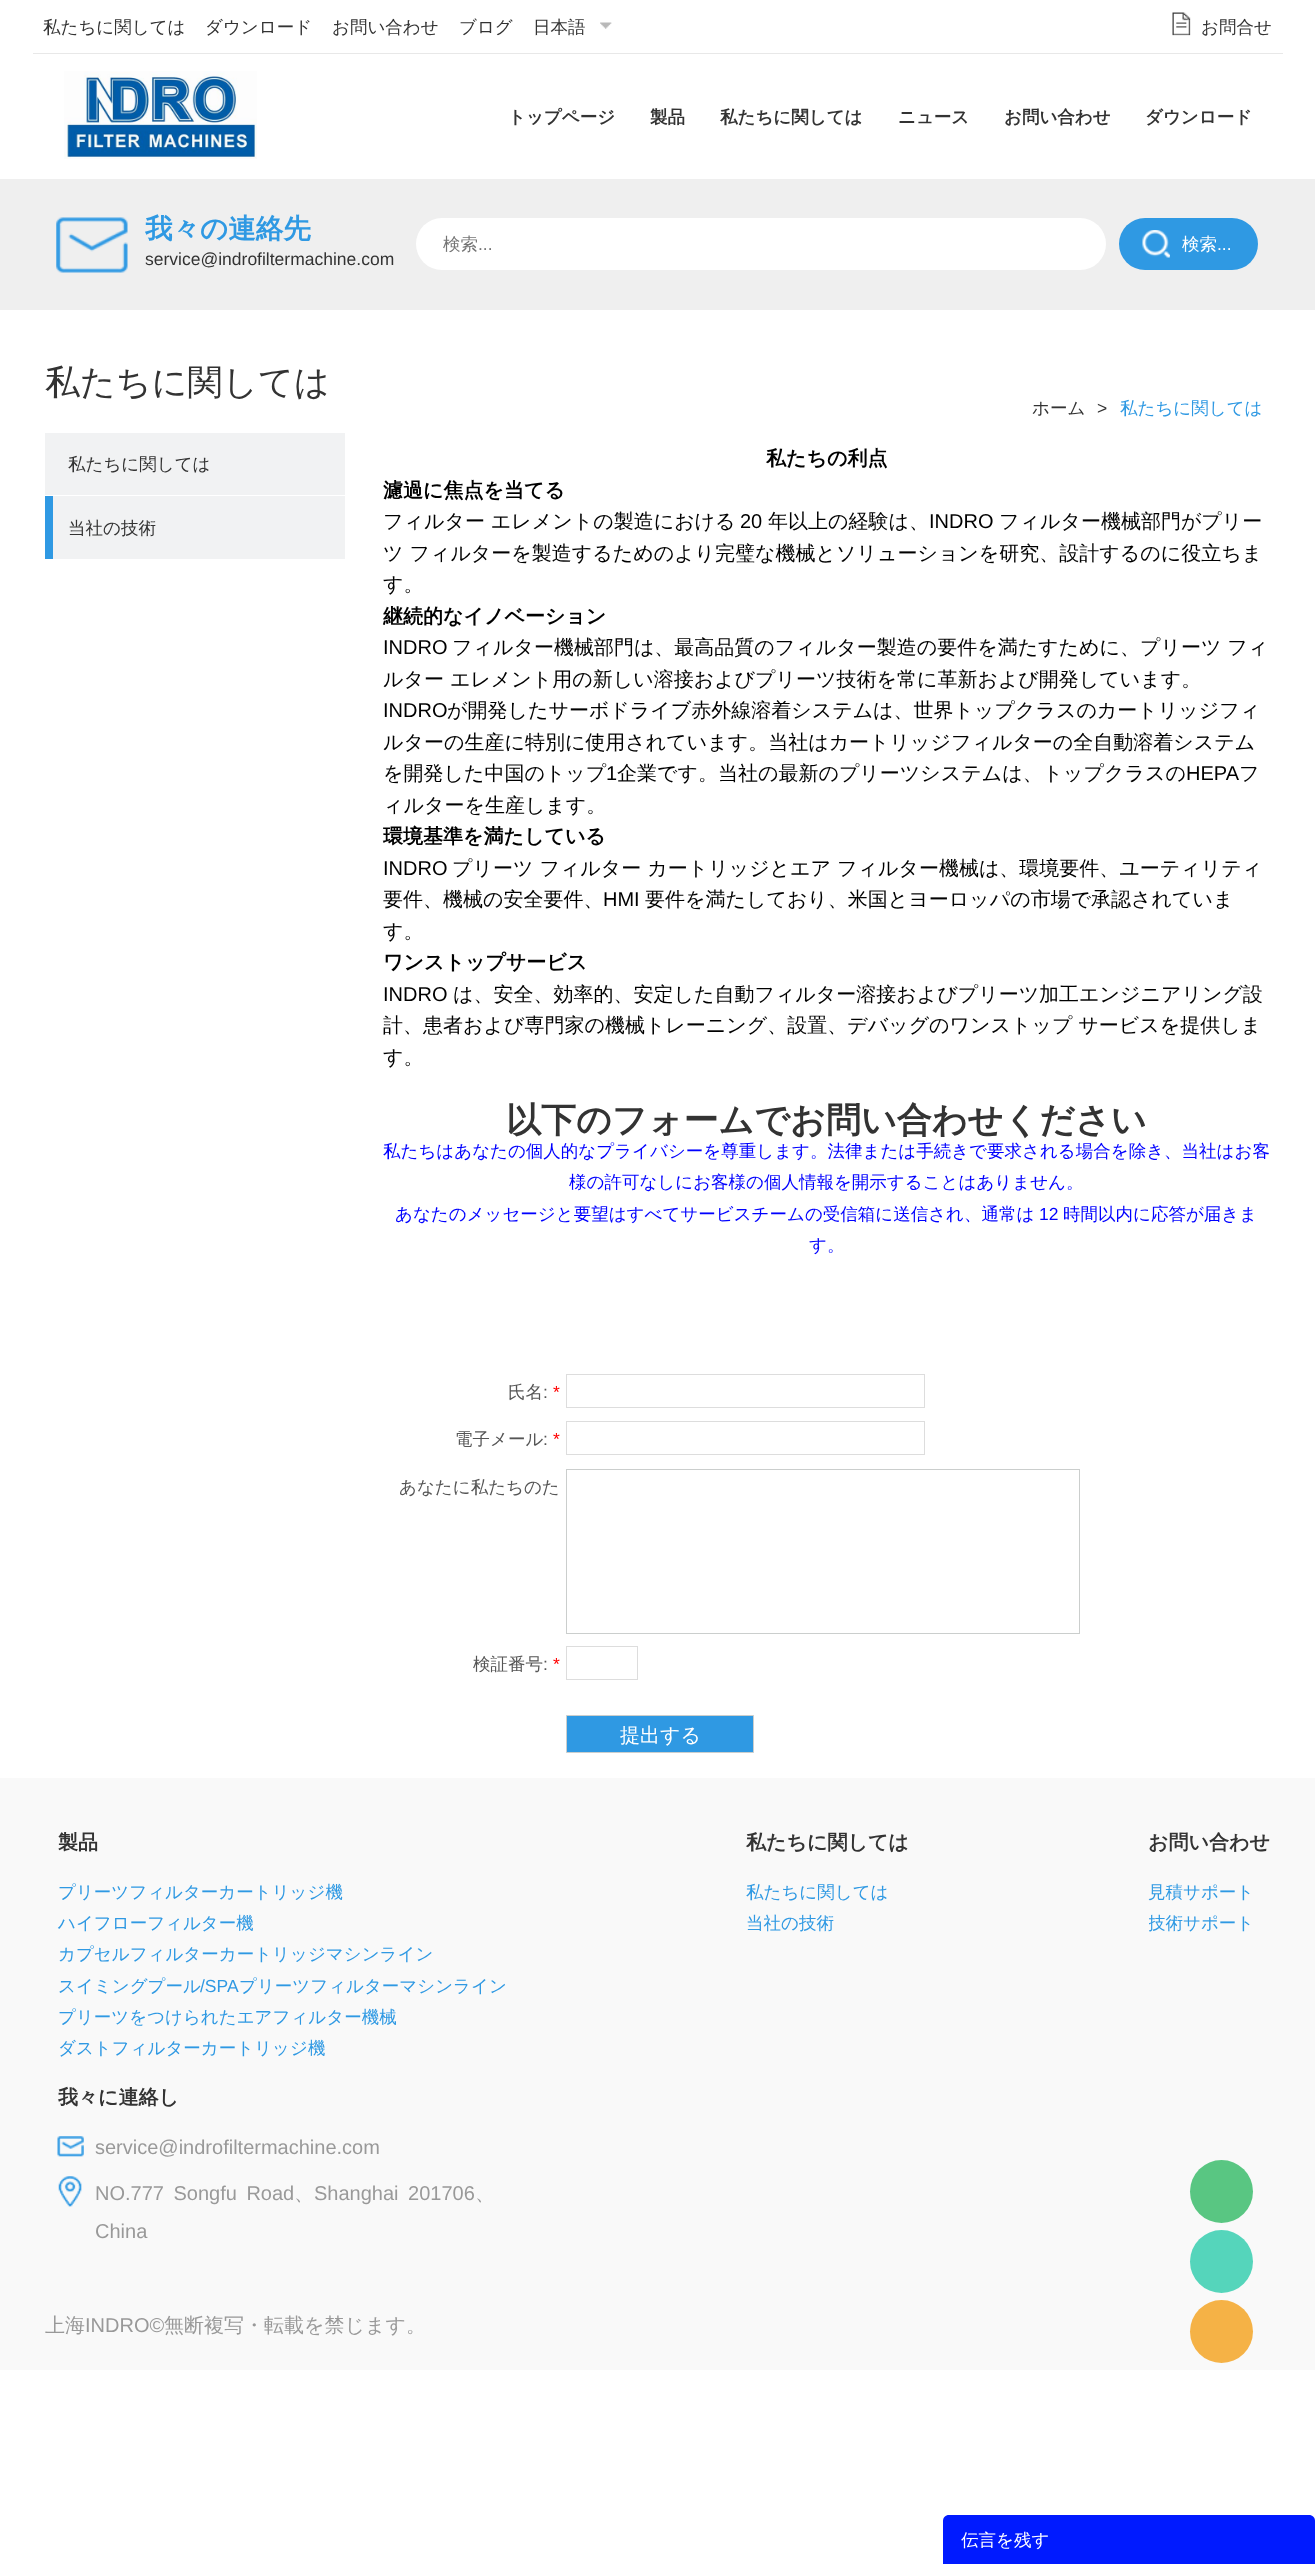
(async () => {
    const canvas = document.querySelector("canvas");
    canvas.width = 1315;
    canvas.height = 2564;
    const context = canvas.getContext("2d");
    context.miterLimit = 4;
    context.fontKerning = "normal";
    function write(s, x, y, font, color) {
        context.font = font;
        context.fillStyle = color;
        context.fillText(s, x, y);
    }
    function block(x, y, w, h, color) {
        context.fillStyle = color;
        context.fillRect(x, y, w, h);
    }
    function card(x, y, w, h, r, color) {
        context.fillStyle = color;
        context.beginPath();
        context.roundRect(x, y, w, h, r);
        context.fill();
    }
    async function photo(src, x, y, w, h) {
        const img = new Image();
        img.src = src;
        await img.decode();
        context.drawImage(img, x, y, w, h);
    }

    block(0, 0, 1315, 2564, "rgb(255, 255, 255)");
    block(33, 53, 1250, 1, "rgb(232, 232, 232)");
    write("私たちに関しては", 43, 33, "500 17.5px WenQuanYi Zen Hei", "rgb(51, 51, 51)");
    write("ダウンロード", 205, 33, "500 17.5px WenQuanYi Zen Hei", "rgb(51, 51, 51)");
    write("お問い合わせ", 332, 33, "500 17.5px WenQuanYi Zen Hei", "rgb(51, 51, 51)");
    write("ブログ", 459, 33, "500 17.5px WenQuanYi Zen Hei", "rgb(51, 51, 51)");
    await photo("media/1.png", 600, 22, 12, 7);
    write("日本語", 533, 33, "500 17.5px WenQuanYi Zen Hei", "rgb(51, 51, 51)");
    await photo("media/2.png", 1172, 12, 19, 24);
    write("お問合せ", 1201, 33, "500 17.5px WenQuanYi Zen Hei", "rgb(51, 51, 51)");
    await photo("media/3.png", 64, 71, 193, 88);
    write("トップページ", 508, 123, "bold 17.5px WenQuanYi Zen Hei", "rgb(51, 51, 51)");
    write("製品", 650, 123, "bold 17.5px WenQuanYi Zen Hei", "rgb(51, 51, 51)");
    write("私たちに関しては", 720, 123, "bold 17.5px WenQuanYi Zen Hei", "rgb(51, 51, 51)");
    write("ニュース", 898, 123, "bold 17.5px WenQuanYi Zen Hei", "rgb(51, 51, 51)");
    write("お問い合わせ", 1004, 123, "bold 17.5px WenQuanYi Zen Hei", "rgb(51, 51, 51)");
    write("ダウンロード", 1145, 123, "bold 17.5px WenQuanYi Zen Hei", "rgb(51, 51, 51)");
    block(0, 179, 1315, 131, "rgb(239, 239, 239)");
    await photo("media/4.png", 56, 217, 72, 56);
    write("我々の連絡先", 145, 238, "bold 27.5px WenQuanYi Zen Hei", "rgb(47, 153, 227)");
    write("service@indrofiltermachine.com", 145, 265, "17.5px Liberation Sans", "rgb(51, 51, 51)");
    card(416, 218, 690, 52, 26, "rgb(255, 255, 255)");
    write("検索", 443, 250, "500 17.5px WenQuanYi Zen Hei", "rgb(117, 117, 117)");
    write("...", 478, 250, "17.5px Liberation Sans", "rgb(117, 117, 117)");
    card(1119, 218, 139, 52, 26, "rgb(47, 153, 227)");
    await photo("media/5.png", 1142, 230, 28, 28);
    write("検索", 1182, 250, "500 17.5px WenQuanYi Zen Hei", "rgb(255, 255, 255)");
    write("...", 1217, 250, "17.5px Liberation Sans", "rgb(255, 255, 255)");
    write("私たちに関しては", 45, 394, "500 35px WenQuanYi Zen Hei", "rgb(51, 51, 51)");
    block(45, 433, 300, 62, "rgb(241, 242, 243)");
    write("私たちに関しては", 68, 470, "500 17.5px WenQuanYi Zen Hei", "rgb(51, 51, 51)");
    block(53, 496, 292, 63, "rgb(241, 242, 243)");
    block(45, 496, 8, 63, "rgb(47, 153, 227)");
    write("当社の技術", 68, 534, "500 17.5px WenQuanYi Zen Hei", "rgb(51, 51, 51)");
    write("ホーム", 1032, 414, "500 17.5px WenQuanYi Zen Hei", "rgb(51, 51, 51)");
    write(">", 1097, 414, "17.5px Liberation Sans", "rgb(51, 51, 51)");
    write("私たちに関しては", 1120, 414, "500 17.5px WenQuanYi Zen Hei", "rgb(47, 153, 227)");
    write("私たちの利点", 766, 465, "bold 20px WenQuanYi Zen Hei", "rgb(0, 0, 0)");
    write("濾過に焦点を当てる", 383, 497, "bold 20px WenQuanYi Zen Hei", "rgb(0, 0, 0)");
    write("フィルター エレメントの製造における", 383, 528, "500 20px WenQuanYi Zen Hei", "rgb(0, 0, 0)");
    write("20", 740, 528, "20px Liberation Sans", "rgb(0, 0, 0)");
    write("年以上の経験は、", 768, 528, "500 20px WenQuanYi Zen Hei", "rgb(0, 0, 0)");
    write("INDRO", 929, 528, "20px Liberation Sans", "rgb(0, 0, 0)");
    write("フィルター機械部門がプリー", 999, 528, "500 20px WenQuanYi Zen Hei", "rgb(0, 0, 0)");
    write("ツ フィルターを製造するためのより完璧な機械とソリューションを研究、設計するのに役立ちま", 383, 560, "500 20px WenQuanYi Zen Hei", "rgb(0, 0, 0)");
    write("す。", 383, 591, "500 20px WenQuanYi Zen Hei", "rgb(0, 0, 0)");
    write("継続的なイノベーション", 383, 623, "bold 20px WenQuanYi Zen Hei", "rgb(0, 0, 0)");
    write("INDRO", 383, 654, "20px Liberation Sans", "rgb(0, 0, 0)");
    write("フィルター機械部門は、最高品質のフィルター製造の要件を満たすために、プリーツ フィ", 452, 654, "500 20px WenQuanYi Zen Hei", "rgb(0, 0, 0)");
    write("ルター エレメント用の新しい溶接およびプリーツ技術を常に革新および開発しています。", 383, 686, "500 20px WenQuanYi Zen Hei", "rgb(0, 0, 0)");
    write("INDRO", 383, 717, "20px Liberation Sans", "rgb(0, 0, 0)");
    write("が開発したサーボドライブ赤外線溶着システムは、世界トップクラスのカートリッジフィ", 447, 717, "500 20px WenQuanYi Zen Hei", "rgb(0, 0, 0)");
    write("ルターの生産に特別に使用されています。当社はカートリッジフィルターの全自動溶着システム", 383, 749, "500 20px WenQuanYi Zen Hei", "rgb(0, 0, 0)");
    write("を開発した中国のトップ", 383, 780, "500 20px WenQuanYi Zen Hei", "rgb(0, 0, 0)");
    write("1", 606, 780, "20px Liberation Sans", "rgb(0, 0, 0)");
    write("企業です。当社の最新のプリーツシステムは、トップクラスの", 617, 780, "500 20px WenQuanYi Zen Hei", "rgb(0, 0, 0)");
    write("HEPA", 1186, 780, "20px Liberation Sans", "rgb(0, 0, 0)");
    write("フ", 1239, 780, "500 20px WenQuanYi Zen Hei", "rgb(0, 0, 0)");
    write("ィルターを生産します。", 383, 812, "500 20px WenQuanYi Zen Hei", "rgb(0, 0, 0)");
    write("環境基準を満たしている", 383, 843, "bold 20px WenQuanYi Zen Hei", "rgb(0, 0, 0)");
    write("INDRO", 383, 875, "20px Liberation Sans", "rgb(0, 0, 0)");
    write("プリーツ フィルター カートリッジとエア フィルター機械は、環境要件、ユーティリティ", 452, 875, "500 20px WenQuanYi Zen Hei", "rgb(0, 0, 0)");
    write("要件、機械の安全要件、", 383, 906, "500 20px WenQuanYi Zen Hei", "rgb(0, 0, 0)");
    write("HMI", 603, 906, "20px Liberation Sans", "rgb(0, 0, 0)");
    write("要件を満たしており、米国とヨーロッパの市場で承認されていま", 645, 906, "500 20px WenQuanYi Zen Hei", "rgb(0, 0, 0)");
    write("す。", 383, 938, "500 20px WenQuanYi Zen Hei", "rgb(0, 0, 0)");
    write("ワンストップサービス", 383, 969, "bold 20px WenQuanYi Zen Hei", "rgb(0, 0, 0)");
    write("INDRO", 383, 1001, "20px Liberation Sans", "rgb(0, 0, 0)");
    write("は、安全、効率的、安定した自動フィルター溶接およびプリーツ加工エンジニアリング設", 453, 1001, "500 20px WenQuanYi Zen Hei", "rgb(0, 0, 0)");
    write("計、患者および専門家の機械トレーニング、設置、デバッグのワンストップ サービスを提供しま", 383, 1032, "500 20px WenQuanYi Zen Hei", "rgb(0, 0, 0)");
    write("す。", 383, 1064, "500 20px WenQuanYi Zen Hei", "rgb(0, 0, 0)");
    write("以下のフォームでお問い合わせください", 506, 1132, "bold 35px WenQuanYi Zen Hei", "rgb(51, 51, 51)");
    write("私たちはあなたの個人的なプライバシーを尊重します。法律または手続きで要求される場合を除き、当社はお客", 383, 1157, "500 17.5px WenQuanYi Zen Hei", "rgb(0, 0, 255)");
    write("様の許可なしにお客様の個人情報を開示することはありません。", 569, 1188, "500 17.5px WenQuanYi Zen Hei", "rgb(0, 0, 255)");
    write("あなたのメッセージと要望はすべてサービスチームの受信箱に送信され、通常は", 395, 1220, "500 17.5px WenQuanYi Zen Hei", "rgb(0, 0, 255)");
    write("12", 1039, 1220, "17.5px Liberation Sans", "rgb(0, 0, 255)");
    write("時間以内に応答が届きま", 1063, 1220, "500 17.5px WenQuanYi Zen Hei", "rgb(0, 0, 255)");
    write("す。", 809, 1251, "500 17.5px WenQuanYi Zen Hei", "rgb(0, 0, 255)");
    write("氏名", 508, 1398, "500 17.5px WenQuanYi Zen Hei", "rgb(85, 85, 85)");
    write(":", 543, 1398, "17.5px Liberation Sans", "rgb(85, 85, 85)");
    write("*", 553, 1398, "17.5px Liberation Sans", "rgb(255, 0, 0)");
    context.strokeStyle = "rgb(221, 221, 221)";
    context.strokeRect(566.5, 1374.5, 358, 33);
    write("電子メール", 455, 1445, "500 17.5px WenQuanYi Zen Hei", "rgb(85, 85, 85)");
    write(":", 543, 1445, "17.5px Liberation Sans", "rgb(85, 85, 85)");
    write("*", 553, 1445, "17.5px Liberation Sans", "rgb(255, 0, 0)");
    context.strokeRect(566.5, 1421.5, 358, 33);
    write("あなたに私たちのた", 399, 1493, "500 17.5px WenQuanYi Zen Hei", "rgb(85, 85, 85)");
    context.strokeStyle = "rgb(203, 206, 205)";
    context.strokeRect(566.5, 1469.5, 513, 164);
    write("検証番号", 473, 1670, "500 17.5px WenQuanYi Zen Hei", "rgb(85, 85, 85)");
    write(":", 543, 1670, "17.5px Liberation Sans", "rgb(85, 85, 85)");
    write("*", 553, 1670, "17.5px Liberation Sans", "rgb(255, 0, 0)");
    context.strokeStyle = "rgb(221, 221, 221)";
    context.strokeRect(566.5, 1646.5, 71, 33);
    context.fillStyle = "rgb(47, 153, 227)";
    context.beginPath();
    context.rect(566.5, 1715.5, 187, 37);
    context.fill();
    context.strokeStyle = "rgb(203, 206, 205)";
    context.stroke();
    write("提出する", 620, 1742, "500 20px WenQuanYi Zen Hei", "rgb(255, 255, 255)");
    block(0, 1778, 1315, 592, "rgb(249, 249, 249)");
    write("製品", 58, 1849, "bold 20px WenQuanYi Zen Hei", "rgb(51, 51, 51)");
    write("プリーツフィルターカートリッジ機", 58, 1898, "500 17.5px WenQuanYi Zen Hei", "rgb(47, 153, 227)");
    write("ハイフローフィルター機", 58, 1929, "500 17.5px WenQuanYi Zen Hei", "rgb(47, 153, 227)");
    write("カプセルフィルターカートリッジマシンライン", 58, 1960, "500 17.5px WenQuanYi Zen Hei", "rgb(47, 153, 227)");
    write("スイミングプール", 58, 1992, "500 17.5px WenQuanYi Zen Hei", "rgb(47, 153, 227)");
    write("/SPA", 200, 1992, "17.5px Liberation Sans", "rgb(47, 153, 227)");
    write("プリーツフィルターマシンライン", 239, 1992, "500 17.5px WenQuanYi Zen Hei", "rgb(47, 153, 227)");
    write("プリーツをつけられたエアフィルター機械", 58, 2023, "500 17.5px WenQuanYi Zen Hei", "rgb(47, 153, 227)");
    write("ダストフィルターカートリッジ機", 58, 2054, "500 17.5px WenQuanYi Zen Hei", "rgb(47, 153, 227)");
    write("私たちに関しては", 746, 1849, "bold 20px WenQuanYi Zen Hei", "rgb(51, 51, 51)");
    write("私たちに関しては", 746, 1898, "500 17.5px WenQuanYi Zen Hei", "rgb(47, 153, 227)");
    write("当社の技術", 746, 1929, "500 17.5px WenQuanYi Zen Hei", "rgb(47, 153, 227)");
    write("お問い合わせ", 1148, 1849, "bold 20px WenQuanYi Zen Hei", "rgb(51, 51, 51)");
    write("見積サポート", 1148, 1898, "500 17.5px WenQuanYi Zen Hei", "rgb(47, 153, 227)");
    context.save();
    context.beginPath();
    context.rect(1149, 1908, 121, 31);
    context.clip();
    write("技術サポート", 1148, 1929, "500 17.5px WenQuanYi Zen Hei", "rgb(47, 153, 227)");
    context.restore();
    write("我々に連絡し", 58, 2104, "bold 20px WenQuanYi Zen Hei", "rgb(51, 51, 51)");
    await photo("media/6.png", 57, 2136, 27, 21);
    write("service@indrofiltermachine.com", 95, 2154, "20px Liberation Sans", "rgb(153, 153, 153)");
    await photo("media/7.png", 58, 2176, 24, 31);
    context.wordSpacing = "4px";
    write("NO.777 Songfu Road", 95, 2200, "20px Liberation Sans", "rgb(153, 153, 153)");
    context.wordSpacing = "0px";
    write("、", 294, 2200, "500 20px WenQuanYi Zen Hei", "rgb(153, 153, 153)");
    context.wordSpacing = "4px";
    write("Shanghai 201706", 314, 2200, "20px Liberation Sans", "rgb(153, 153, 153)");
    context.wordSpacing = "0px";
    write("、", 475, 2200, "500 20px WenQuanYi Zen Hei", "rgb(153, 153, 153)");
    write("China", 95, 2238, "20px Liberation Sans", "rgb(153, 153, 153)");
    write("上海", 45, 2332, "500 20px WenQuanYi Zen Hei", "rgb(153, 153, 153)");
    write("INDRO©", 85, 2332, "20px Liberation Sans", "rgb(153, 153, 153)");
    write("無断複写・転載を禁じます。", 164, 2332, "500 20px WenQuanYi Zen Hei", "rgb(153, 153, 153)");
    context.fillStyle = "rgb(89, 198, 130)";
    context.beginPath();
    context.arc(1221.5, 2191.5, 31.5, 0, Math.PI * 2);
    context.fill();
    context.fillStyle = "rgb(85, 213, 187)";
    context.beginPath();
    context.arc(1221.5, 2261.5, 31.5, 0, Math.PI * 2);
    context.fill();
    context.fillStyle = "rgb(245, 178, 70)";
    context.beginPath();
    context.arc(1221.5, 2331.5, 31.5, 0, Math.PI * 2);
    context.fill();
    context.fillStyle = "rgb(0, 26, 255)";
    context.beginPath();
    context.moveTo(949, 2515);
    context.lineTo(1309, 2515);
    context.bezierCurveTo(1312.5, 2515, 1315, 2517.5, 1315, 2521);
    context.lineTo(1315, 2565);
    context.lineTo(943, 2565);
    context.lineTo(943, 2521);
    context.bezierCurveTo(943, 2517.5, 945.5, 2515, 949, 2515);
    context.closePath();
    context.fill();
    write("伝言を残す", 961, 2546, "500 17.5px WenQuanYi Zen Hei", "rgb(255, 255, 255)");
})();
